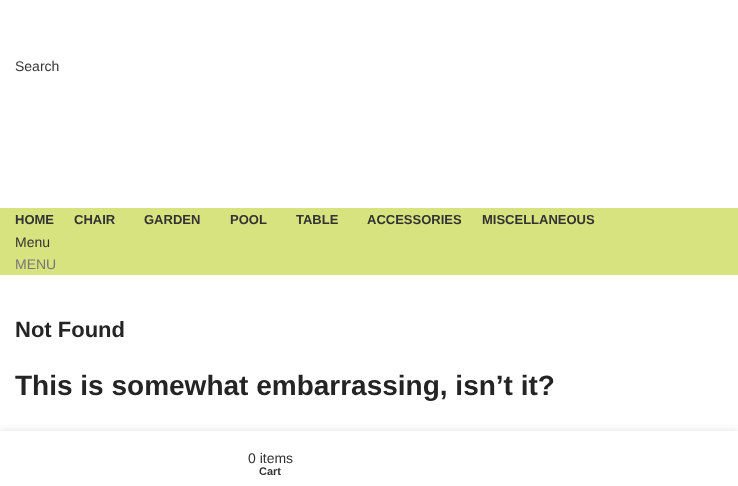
(async () => {
    const canvas = document.querySelector("canvas");
    canvas.width = 738;
    canvas.height = 486;
    const context = canvas.getContext("2d");
    context.miterLimit = 4;
    context.fontKerning = "normal";
    function write(s, x, y, font, color) {
        context.font = font;
        context.fillStyle = color;
        context.fillText(s, x, y);
    }
    function block(x, y, w, h, color) {
        context.fillStyle = color;
        context.fillRect(x, y, w, h);
    }

    block(0, 0, 738, 486, "rgb(255, 255, 255)");
    write("Search", 15, 71, "14px Liberation Sans", "rgb(51, 51, 51)");
    block(0, 208, 738, 67, "rgb(215, 227, 127)");
    write("HOME", 15, 224, "bold 13px Liberation Sans", "rgb(51, 51, 51)");
    write("CHAIR", 74, 224, "bold 13px Liberation Sans", "rgb(51, 51, 51)");
    write("GARDEN", 144, 224, "bold 13px Liberation Sans", "rgb(51, 51, 51)");
    write("POOL", 230, 224, "bold 13px Liberation Sans", "rgb(51, 51, 51)");
    write("TABLE", 296, 224, "bold 13px Liberation Sans", "rgb(51, 51, 51)");
    write("ACCESSORIES", 367, 224, "bold 13px Liberation Sans", "rgb(51, 51, 51)");
    write("MISCELLANEOUS", 482, 224, "bold 13px Liberation Sans", "rgb(51, 51, 51)");
    write("Menu", 15, 247, "14px Liberation Sans", "rgb(51, 51, 51)");
    write("MENU", 15, 269, "14px Liberation Sans", "rgb(118, 118, 118)");
    write("Not Found", 15, 337, "bold 22px Liberation Sans", "rgb(36, 36, 36)");
    write("This is somewhat embarrassing, isn’t it?", 15, 395, "bold 28px Liberation Sans", "rgb(36, 36, 36)");
    context.fillStyle = "rgba(0, 0, 0, 0.12)";
    context.filter = "blur(4.5px)";
    context.beginPath();
    context.rect(0, 431, 738, 55);
    context.fill();
    context.filter = "none";
    block(0, 431, 738, 55, "rgb(255, 255, 255)");
    write("0 items", 248, 463, "14px Liberation Sans", "rgb(51, 51, 51)");
    write("Cart", 259, 475, "bold 11px Liberation Sans", "rgb(51, 51, 51)");
})();
